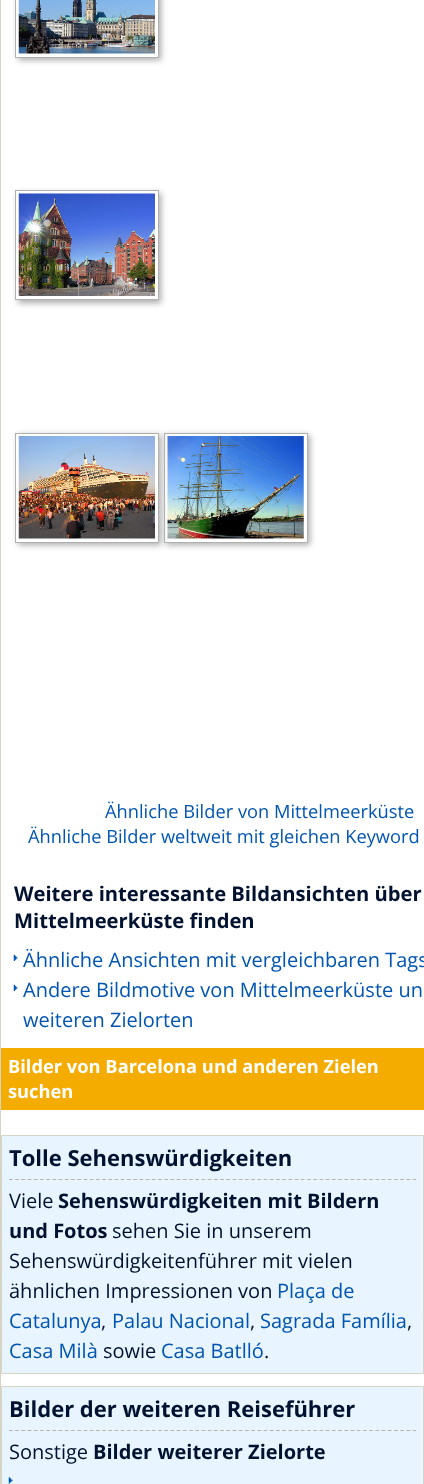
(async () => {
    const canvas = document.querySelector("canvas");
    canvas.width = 424;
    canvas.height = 1484;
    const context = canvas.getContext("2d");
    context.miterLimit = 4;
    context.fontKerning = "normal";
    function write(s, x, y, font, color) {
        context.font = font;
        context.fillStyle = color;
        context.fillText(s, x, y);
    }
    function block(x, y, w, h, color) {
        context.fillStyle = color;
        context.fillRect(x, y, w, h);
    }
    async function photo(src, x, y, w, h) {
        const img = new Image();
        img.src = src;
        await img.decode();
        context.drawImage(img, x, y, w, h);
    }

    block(0, 0, 424, 1484, "rgb(255, 255, 255)");
    context.strokeStyle = "rgb(215, 212, 197)";
    context.strokeRect(0.5, -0.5, 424, 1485);
    context.save();
    context.beginPath();
    context.moveTo(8, 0);
    context.lineTo(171, 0);
    context.lineTo(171, 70);
    context.lineTo(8, 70);
    context.closePath();
    context.moveTo(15, -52);
    context.lineTo(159, -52);
    context.lineTo(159, 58);
    context.lineTo(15, 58);
    context.closePath();
    context.clip("evenodd");
    context.fillStyle = "rgb(170, 170, 170)";
    context.filter = "blur(3px)";
    context.beginPath();
    context.rect(18, -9, 143, 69);
    context.fill();
    context.filter = "none";
    context.restore();
    context.strokeStyle = "rgb(176, 176, 176)";
    context.strokeRect(15.5, -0.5, 143, 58);
    await photo("media/1.png", 18, 0, 137, 54);
    context.save();
    context.beginPath();
    context.moveTo(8, 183);
    context.lineTo(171, 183);
    context.lineTo(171, 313);
    context.lineTo(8, 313);
    context.closePath();
    context.moveTo(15, 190);
    context.lineTo(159, 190);
    context.lineTo(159, 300);
    context.lineTo(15, 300);
    context.closePath();
    context.clip("evenodd");
    context.fillStyle = "rgb(170, 170, 170)";
    context.filter = "blur(3px)";
    context.beginPath();
    context.rect(18, 193, 143, 110);
    context.fill();
    context.filter = "none";
    context.restore();
    context.strokeRect(15.5, 190.5, 143, 109);
    await photo("media/2.png", 18, 193, 137, 103);
    context.save();
    context.beginPath();
    context.moveTo(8, 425);
    context.lineTo(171, 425);
    context.lineTo(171, 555);
    context.lineTo(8, 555);
    context.closePath();
    context.moveTo(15, 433);
    context.lineTo(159, 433);
    context.lineTo(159, 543);
    context.lineTo(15, 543);
    context.closePath();
    context.clip("evenodd");
    context.fillStyle = "rgb(170, 170, 170)";
    context.filter = "blur(3px)";
    context.beginPath();
    context.rect(18, 435, 143, 110);
    context.fill();
    context.filter = "none";
    context.restore();
    context.strokeRect(15.5, 433.5, 143, 109);
    await photo("media/3.png", 18, 436, 137, 103);
    context.save();
    context.beginPath();
    context.moveTo(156, 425);
    context.lineTo(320, 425);
    context.lineTo(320, 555);
    context.lineTo(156, 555);
    context.closePath();
    context.moveTo(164, 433);
    context.lineTo(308, 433);
    context.lineTo(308, 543);
    context.lineTo(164, 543);
    context.closePath();
    context.clip("evenodd");
    context.fillStyle = "rgb(170, 170, 170)";
    context.filter = "blur(3px)";
    context.beginPath();
    context.rect(166, 435, 144, 110);
    context.fill();
    context.filter = "none";
    context.restore();
    context.strokeRect(164.5, 433.5, 143, 109);
    await photo("media/4.png", 167, 436, 137, 103);
    write("Ähnliche Bilder von Mittelmeerküste", 105, 818, "18.3px Open Sans", "rgb(0, 85, 178)");
    write("Ähnliche Bilder weltweit mit gleichen Keyword", 28, 843, "18.3px Open Sans", "rgb(0, 85, 178)");
    write("Weitere interessante Bildansichten über", 14, 901, "bold 20.2px Open Sans", "rgb(0, 18, 47)");
    write("Mittelmeerküste finden", 14, 928, "bold 20.2px Open Sans", "rgb(0, 18, 47)");
    await photo("media/5.png", 13, 954, 5, 7);
    write("Ähnliche Ansichten mit vergleichbaren Tags", 23, 967, "20px Open Sans", "rgb(0, 85, 178)");
    await photo("media/5.png", 13, 984, 5, 7);
    write("Andere Bildmotive von Mittelmeerküste un", 23, 997, "20px Open Sans", "rgb(0, 85, 178)");
    write("weiteren Zielorten", 23, 1027, "20px Open Sans", "rgb(0, 85, 178)");
    block(1, 1048, 423, 62, "rgb(245, 172, 0)");
    write("Bilder von Barcelona und anderen Zielen", 8, 1073, "bold 18.3px Open Sans", "rgb(255, 255, 255)");
    write("suchen", 8, 1098, "bold 18.3px Open Sans", "rgb(255, 255, 255)");
    context.fillStyle = "rgb(232, 244, 255)";
    context.beginPath();
    context.rect(1.5, 1135.5, 422, 238);
    context.fill();
    context.strokeStyle = "rgb(215, 212, 197)";
    context.stroke();
    context.beginPath();
    context.moveTo(9, 1179.5);
    context.lineTo(416, 1179.5);
    context.strokeStyle = "rgb(183, 180, 168)";
    context.lineWidth = 1.2;
    context.setLineDash([3.75, 2.46]);
    context.stroke();
    write("Tolle Sehenswürdigkeiten", 9, 1166, "bold 22px Open Sans", "rgb(0, 18, 47)");
    write("Viele", 9, 1208, "20px Open Sans", "rgb(0, 18, 47)");
    write("Sehenswürdigkeiten mit Bildern", 58, 1208, "bold 20px Open Sans", "rgb(0, 18, 47)");
    write("und Fotos", 9, 1238, "bold 20px Open Sans", "rgb(0, 18, 47)");
    write("sehen Sie in unserem", 112, 1238, "20px Open Sans", "rgb(0, 18, 47)");
    write("Sehenswürdigkeitenführer mit vielen", 9, 1268, "20px Open Sans", "rgb(0, 18, 47)");
    write("ähnlichen Impressionen von", 9, 1298, "20px Open Sans", "rgb(0, 18, 47)");
    write("Plaça de", 277, 1298, "20px Open Sans", "rgb(0, 85, 178)");
    write("Catalunya", 9, 1328, "20px Open Sans", "rgb(0, 85, 178)");
    write(",", 101, 1328, "20px Open Sans", "rgb(0, 18, 47)");
    write("Palau Nacional", 112, 1328, "20px Open Sans", "rgb(0, 85, 178)");
    write(",", 250, 1328, "20px Open Sans", "rgb(0, 18, 47)");
    write("Sagrada Família", 260, 1328, "20px Open Sans", "rgb(0, 85, 178)");
    write(",", 407, 1328, "20px Open Sans", "rgb(0, 18, 47)");
    write("Casa Milà", 9, 1358, "20px Open Sans", "rgb(0, 85, 178)");
    write("sowie", 103, 1358, "20px Open Sans", "rgb(0, 18, 47)");
    write("Casa Batlló", 161, 1358, "20px Open Sans", "rgb(0, 85, 178)");
    write(".", 264, 1358, "20px Open Sans", "rgb(0, 18, 47)");
    context.fillStyle = "rgb(232, 244, 255)";
    context.beginPath();
    context.rect(1.5, 1386.5, 422, 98);
    context.fill();
    context.strokeStyle = "rgb(215, 212, 197)";
    context.lineWidth = 1;
    context.setLineDash([]);
    context.stroke();
    context.beginPath();
    context.moveTo(9, 1430.5);
    context.lineTo(416, 1430.5);
    context.strokeStyle = "rgb(183, 180, 168)";
    context.lineWidth = 1.2;
    context.setLineDash([3.75, 2.46]);
    context.stroke();
    write("Bilder der weiteren Reiseführer", 9, 1417, "bold 22px Open Sans", "rgb(0, 18, 47)");
    write("Sonstige", 9, 1459, "20px Open Sans", "rgb(0, 18, 47)");
    write("Bilder weiterer Zielorte", 93, 1459, "bold 20px Open Sans", "rgb(0, 18, 47)");
    await photo("media/6.png", 8, 1477, 5, 7);
})();
